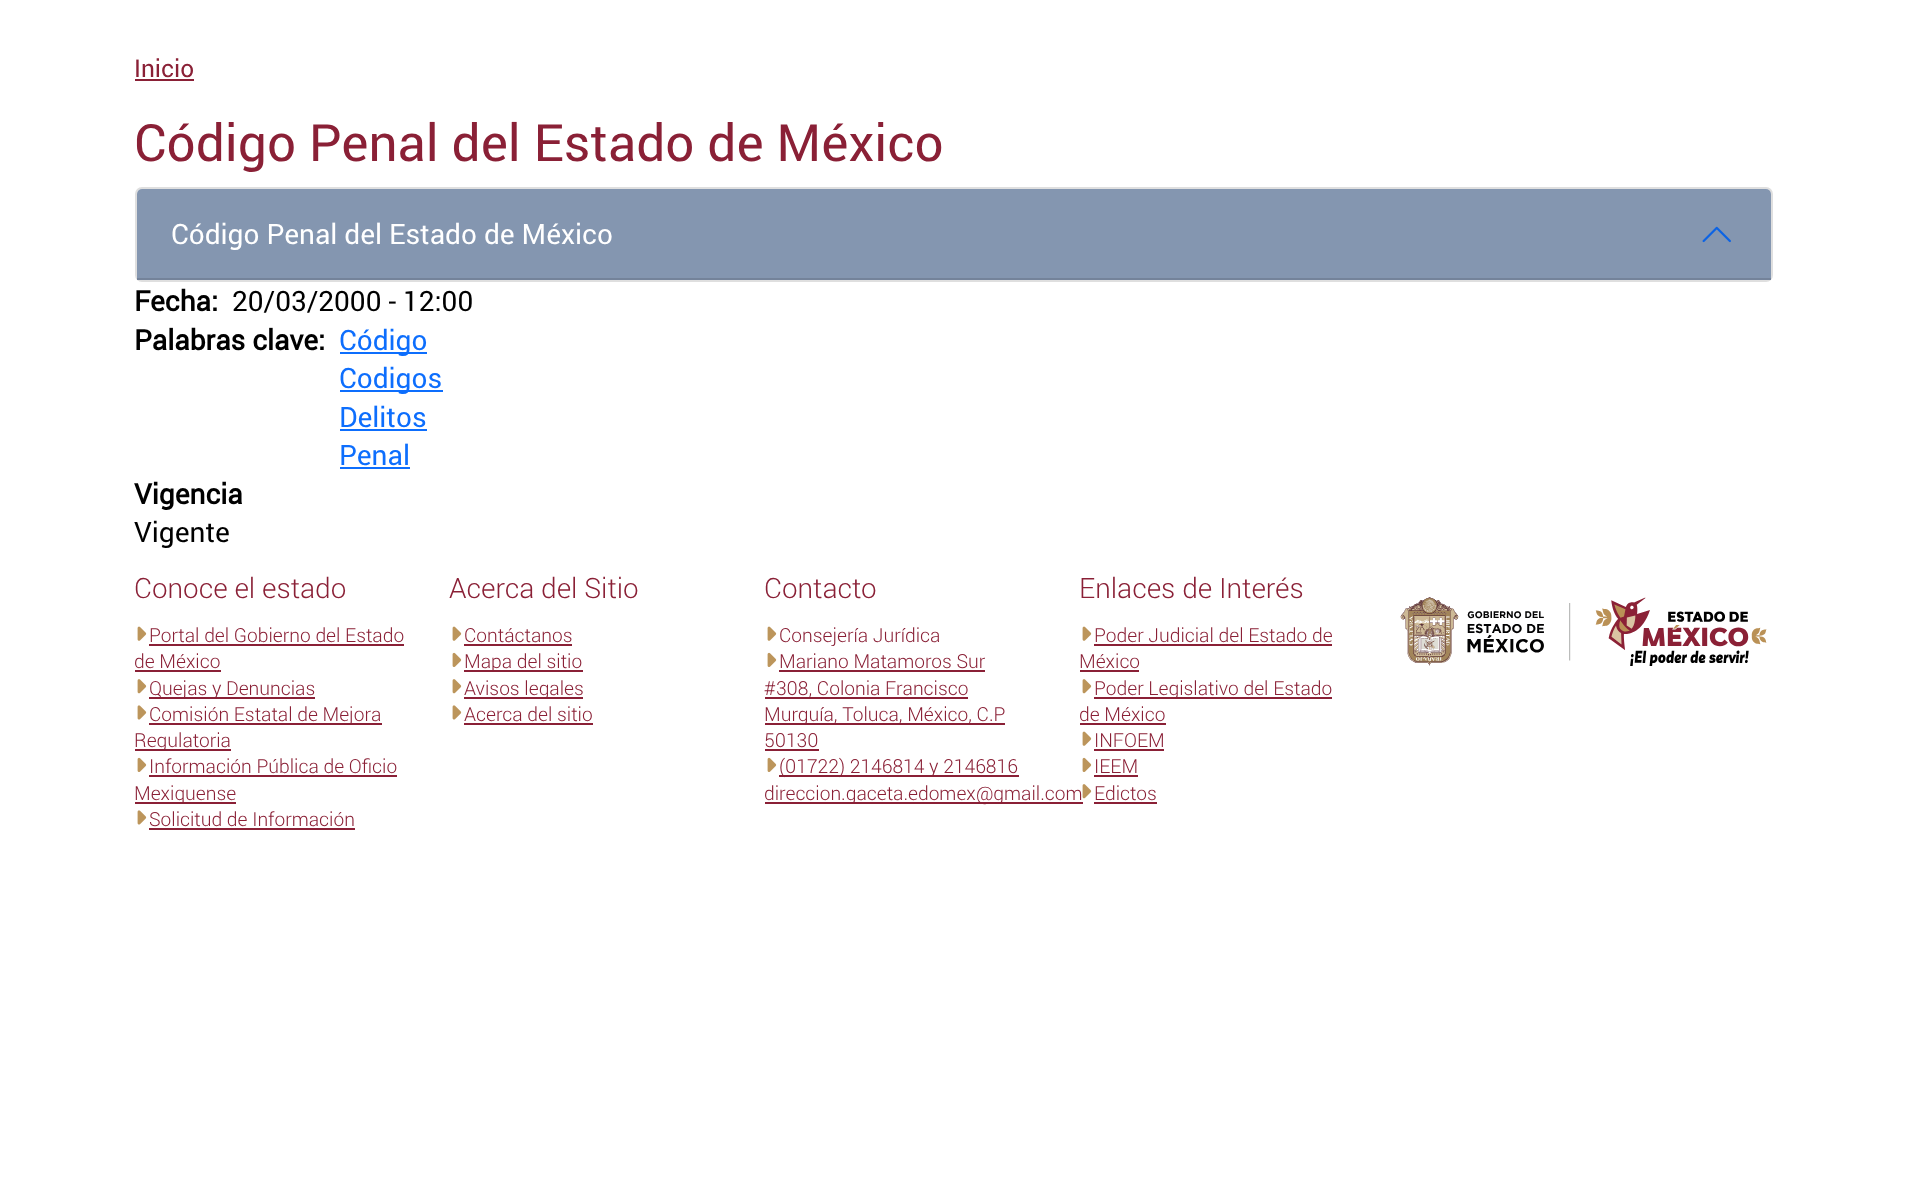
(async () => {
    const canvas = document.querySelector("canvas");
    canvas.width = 1905;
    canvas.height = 1192;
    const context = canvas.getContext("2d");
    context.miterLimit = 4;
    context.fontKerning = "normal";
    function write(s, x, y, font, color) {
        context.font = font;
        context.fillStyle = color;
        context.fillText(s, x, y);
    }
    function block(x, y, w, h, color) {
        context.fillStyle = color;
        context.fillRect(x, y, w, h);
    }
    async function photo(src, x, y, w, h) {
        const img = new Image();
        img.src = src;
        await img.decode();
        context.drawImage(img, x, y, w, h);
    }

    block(0, 0, 1905, 1192, "rgb(255, 255, 255)");
    write("Inicio", 134, 77, "24.5px roboto", "rgb(138, 32, 54)");
    block(135, 79, 59, 2, "rgb(138, 32, 54)");
    write("Código Penal del Estado de México", 134, 161, "51.3px roboto", "rgb(138, 32, 54)");
    context.beginPath();
    context.roundRect(136, 188, 1636, 93, 6);
    context.strokeStyle = "rgb(223, 223, 223)";
    context.lineWidth = 2;
    context.stroke();
    context.fillStyle = "rgb(132, 150, 176)";
    context.beginPath();
    context.roundRect(137, 189, 1634, 91, [5, 5, 0, 0]);
    context.fill();
    block(137, 278, 1634, 2, "rgb(116, 131, 154)");
    write("Código Penal del Estado de México", 171, 244, "28px roboto", "rgb(255, 255, 255)");
    await photo("media/1.png", 1702, 226, 29, 17);
    write("Fecha:", 134, 311, "bold 28px roboto", "rgb(0, 0, 0)");
    write("20/03/2000 - 12:00", 232, 311, "28px roboto", "rgb(0, 0, 0)");
    write("Palabras clave:", 134, 350, "bold 28px roboto", "rgb(0, 0, 0)");
    block(340, 352, 87, 2, "rgb(13, 110, 253)");
    write("Código", 339, 350, "28px roboto", "rgb(13, 110, 253)");
    block(340, 390, 103, 2, "rgb(13, 110, 253)");
    write("Codigos", 339, 388, "28px roboto", "rgb(13, 110, 253)");
    write("Delitos", 339, 427, "28px roboto", "rgb(13, 110, 253)");
    block(340, 429, 87, 2, "rgb(13, 110, 253)");
    write("Penal", 339, 465, "28px roboto", "rgb(13, 110, 253)");
    block(340, 467, 70, 2, "rgb(13, 110, 253)");
    write("Vigencia", 134, 504, "bold 28px roboto", "rgb(0, 0, 0)");
    write("Vigente", 134, 542, "28px roboto", "rgb(0, 0, 0)");
    write("Conoce el estado", 134, 598, "300 28px Roboto", "rgb(138, 32, 54)");
    await photo("media/2.png", 137, 626, 10, 15);
    write("Portal del Gobierno del Estado", 149, 642, "300 19.25px Roboto", "rgb(138, 32, 54)");
    block(149, 644, 255, 2, "rgb(138, 32, 54)");
    write("de México", 134, 668, "300 19.25px Roboto", "rgb(138, 32, 54)");
    block(135, 670, 86, 2, "rgb(138, 32, 54)");
    await photo("media/3.png", 137, 679, 10, 15);
    block(149, 697, 166, 2, "rgb(138, 32, 54)");
    write("Quejas y Denuncias", 149, 695, "300 19.25px Roboto", "rgb(138, 32, 54)");
    await photo("media/4.png", 137, 705, 10, 15);
    block(149, 723, 233, 2, "rgb(138, 32, 54)");
    write("Comisión Estatal de Mejora", 149, 721, "300 19.25px Roboto", "rgb(138, 32, 54)");
    block(135, 749, 96, 2, "rgb(138, 32, 54)");
    write("Regulatoria", 134, 747, "300 19.25px Roboto", "rgb(138, 32, 54)");
    await photo("media/5.png", 137, 757, 10, 15);
    write("Información Pública de Oficio", 149, 773, "300 19.25px Roboto", "rgb(138, 32, 54)");
    block(149, 775, 248, 2, "rgb(138, 32, 54)");
    block(135, 802, 101, 2, "rgb(138, 32, 54)");
    write("Mexiquense", 134, 800, "300 19.25px Roboto", "rgb(138, 32, 54)");
    await photo("media/4.png", 137, 810, 10, 15);
    write("Solicitud de Información", 149, 826, "300 19.25px Roboto", "rgb(138, 32, 54)");
    block(149, 828, 206, 2, "rgb(138, 32, 54)");
    write("Acerca del Sitio", 449, 598, "300 28px Roboto", "rgb(138, 32, 54)");
    await photo("media/2.png", 452, 626, 10, 15);
    write("Contáctanos", 464, 642, "300 19.25px Roboto", "rgb(138, 32, 54)");
    block(464, 644, 108, 2, "rgb(138, 32, 54)");
    await photo("media/5.png", 452, 652, 10, 15);
    block(464, 670, 119, 2, "rgb(138, 32, 54)");
    write("Mapa del sitio", 464, 668, "300 19.25px Roboto", "rgb(138, 32, 54)");
    await photo("media/3.png", 452, 679, 10, 15);
    block(464, 697, 119, 2, "rgb(138, 32, 54)");
    write("Avisos legales", 464, 695, "300 19.25px Roboto", "rgb(138, 32, 54)");
    await photo("media/4.png", 452, 705, 10, 15);
    write("Acerca del sitio", 464, 721, "300 19.25px Roboto", "rgb(138, 32, 54)");
    block(464, 723, 129, 2, "rgb(138, 32, 54)");
    write("Contacto", 764, 598, "300 28px Roboto", "rgb(138, 32, 54)");
    await photo("media/2.png", 767, 626, 10, 15);
    write("Consejería Jurídica", 779, 642, "300 19.25px Roboto", "rgb(138, 32, 54)");
    await photo("media/5.png", 767, 652, 10, 15);
    write("Mariano Matamoros Sur", 779, 668, "300 19.25px Roboto", "rgb(138, 32, 54)");
    block(779, 670, 206, 2, "rgb(138, 32, 54)");
    block(765, 697, 203, 2, "rgb(138, 32, 54)");
    write("#308, Colonia Francisco", 764, 695, "300 19.25px Roboto", "rgb(138, 32, 54)");
    block(765, 723, 240, 2, "rgb(138, 32, 54)");
    write("Murguía, Toluca, México, C.P", 764, 721, "300 19.25px Roboto", "rgb(138, 32, 54)");
    write("50130", 764, 747, "300 19.25px Roboto", "rgb(138, 32, 54)");
    block(765, 749, 54, 2, "rgb(138, 32, 54)");
    await photo("media/5.png", 767, 757, 10, 15);
    block(779, 775, 240, 2, "rgb(138, 32, 54)");
    write("(01722) 2146814 y 2146816", 779, 773, "300 19.25px Roboto", "rgb(138, 32, 54)");
    block(765, 802, 318, 2, "rgb(138, 32, 54)");
    write("direccion.gaceta.edomex@gmail.com", 764, 800, "300 19.25px Roboto", "rgb(138, 32, 54)");
    write("Enlaces de Interés", 1079, 598, "300 28px Roboto", "rgb(138, 32, 54)");
    await photo("media/2.png", 1082, 626, 10, 15);
    write("Poder Judicial del Estado de", 1094, 642, "300 19.25px Roboto", "rgb(138, 32, 54)");
    block(1094, 644, 238, 2, "rgb(138, 32, 54)");
    write("México", 1079, 668, "300 19.25px Roboto", "rgb(138, 32, 54)");
    block(1080, 670, 59, 2, "rgb(138, 32, 54)");
    await photo("media/3.png", 1082, 679, 10, 15);
    block(1094, 697, 238, 2, "rgb(138, 32, 54)");
    write("Poder Legislativo del Estado", 1094, 695, "300 19.25px Roboto", "rgb(138, 32, 54)");
    write("de México", 1079, 721, "300 19.25px Roboto", "rgb(138, 32, 54)");
    block(1080, 723, 86, 2, "rgb(138, 32, 54)");
    await photo("media/2.png", 1082, 731, 10, 15);
    write("INFOEM", 1094, 747, "300 19.25px Roboto", "rgb(138, 32, 54)");
    block(1094, 749, 70, 2, "rgb(138, 32, 54)");
    await photo("media/5.png", 1082, 757, 10, 15);
    write("IEEM", 1094, 773, "300 19.25px Roboto", "rgb(138, 32, 54)");
    block(1094, 775, 44, 2, "rgb(138, 32, 54)");
    await photo("media/3.png", 1082, 784, 10, 15);
    write("Edictos", 1094, 800, "300 19.25px Roboto", "rgb(138, 32, 54)");
    block(1094, 802, 63, 2, "rgb(138, 32, 54)");
    await photo("media/6.png", 1400, 597, 367, 69);
})();
